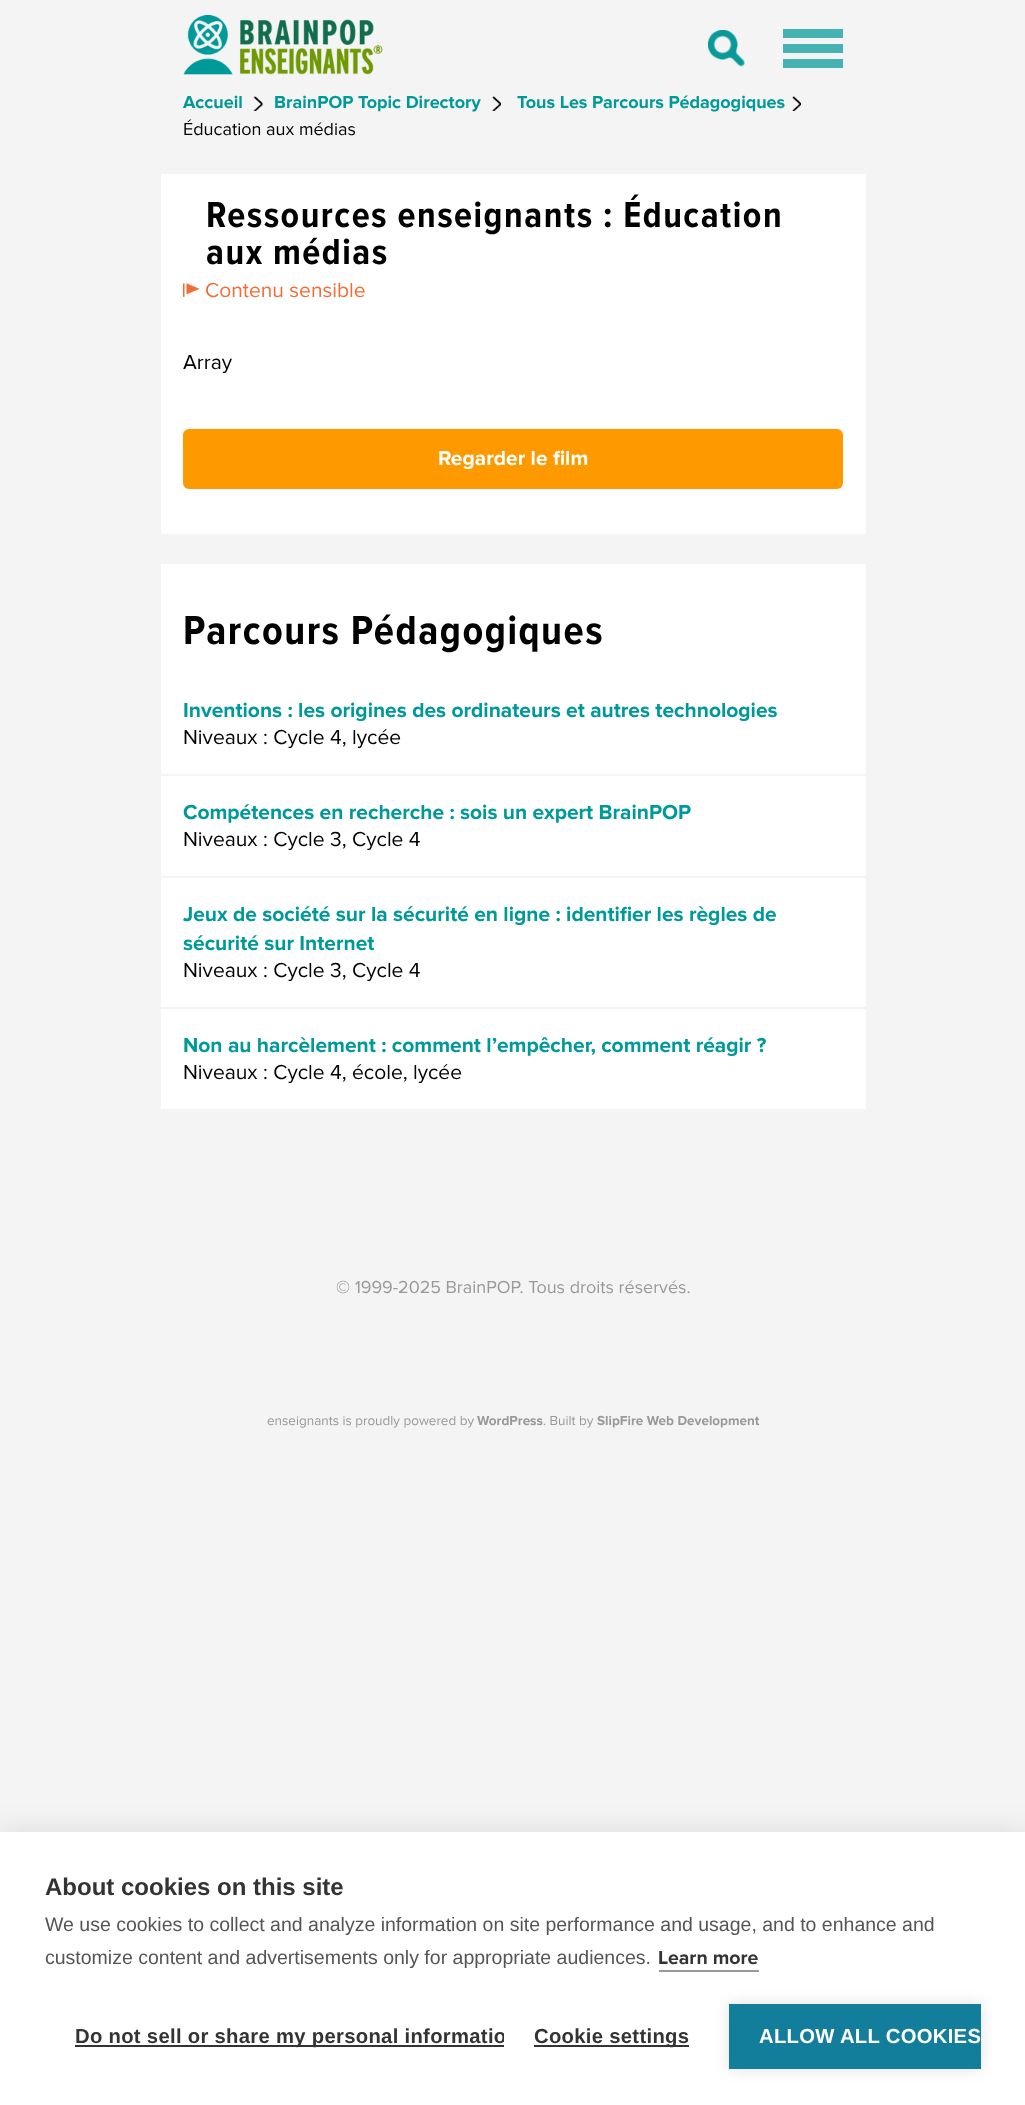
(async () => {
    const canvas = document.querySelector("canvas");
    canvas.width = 1025;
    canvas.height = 2105;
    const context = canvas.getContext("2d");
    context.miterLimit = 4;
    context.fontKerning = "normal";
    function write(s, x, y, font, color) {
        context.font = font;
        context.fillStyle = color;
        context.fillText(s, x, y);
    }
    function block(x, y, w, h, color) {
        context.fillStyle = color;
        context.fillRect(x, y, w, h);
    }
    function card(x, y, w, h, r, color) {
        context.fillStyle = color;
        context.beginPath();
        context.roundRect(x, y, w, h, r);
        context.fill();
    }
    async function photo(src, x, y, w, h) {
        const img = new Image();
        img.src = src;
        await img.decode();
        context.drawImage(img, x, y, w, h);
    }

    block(0, 0, 1025, 2105, "rgb(244, 244, 244)");
    await photo("media/1.png", 183, 15, 200, 60);
    await photo("media/2.png", 708, 30, 38, 37);
    block(783, 29, 60, 9, "rgb(70, 178, 178)");
    block(783, 44, 60, 9, "rgb(70, 178, 178)");
    block(783, 59, 60, 9, "rgb(70, 178, 178)");
    write("Accueil", 183, 108, "bold 18px Proxima Nova", "rgb(0, 153, 153)");
    await photo("media/3.png", 253, 96, 10, 15);
    write("BrainPOP Topic Directory", 274, 108, "bold 18px Proxima Nova", "rgb(0, 153, 153)");
    await photo("media/4.png", 492, 96, 9, 15);
    write("Tous Les Parcours Pédagogiques", 517, 108, "bold 18px Proxima Nova", "rgb(0, 153, 153)");
    await photo("media/5.png", 792, 96, 9, 15);
    write("Éducation aux médias", 183, 135, "18px Proxima Nova", "rgb(0, 0, 0)");
    block(161, 174, 705, 360, "rgb(255, 255, 255)");
    context.letterSpacing = "1.5px";
    write("Ressources enseignants : Éducation", 206, 227, "bold 37.5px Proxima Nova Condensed", "rgb(0, 0, 0)");
    write("aux médias", 206, 264, "bold 37.5px Proxima Nova Condensed", "rgb(0, 0, 0)");
    await photo("media/6.png", 183, 283, 17, 14);
    context.letterSpacing = "0px";
    write("Contenu sensible", 205, 297, "21px Proxima Nova", "rgb(241, 109, 54)");
    write("Array", 183, 369, "21px Proxima Nova", "rgb(0, 0, 0)");
    card(183, 429, 660, 60, 6, "rgb(255, 153, 0)");
    write("Regarder le film", 438, 465, "bold 21px Proxima Nova", "rgb(255, 255, 255)");
    block(161, 564, 705, 545, "rgb(255, 255, 255)");
    context.letterSpacing = "1.5px";
    write("Parcours Pédagogiques", 183, 644, "bold 42px Proxima Nova Condensed", "rgb(0, 0, 0)");
    context.letterSpacing = "0px";
    write("Inventions : les origines des ordinateurs et autres technologies", 183, 717, "bold 21px Proxima Nova", "rgb(0, 153, 153)");
    write("Niveaux : Cycle 4, lycée", 183, 744, "21px Proxima Nova", "rgb(0, 0, 0)");
    block(161, 774, 705, 2, "rgb(244, 244, 244)");
    write("Compétences en recherche : sois un expert BrainPOP", 183, 819, "bold 21px Proxima Nova", "rgb(0, 153, 153)");
    write("Niveaux : Cycle 3, Cycle 4", 183, 846, "21px Proxima Nova", "rgb(0, 0, 0)");
    block(161, 876, 705, 2, "rgb(244, 244, 244)");
    write("Jeux de société sur la sécurité en ligne : identifier les règles de", 183, 921, "bold 21px Proxima Nova", "rgb(0, 153, 153)");
    write("sécurité sur Internet", 183, 950, "bold 21px Proxima Nova", "rgb(0, 153, 153)");
    write("Niveaux : Cycle 3, Cycle 4", 183, 977, "21px Proxima Nova", "rgb(0, 0, 0)");
    block(161, 1007, 705, 2, "rgb(244, 244, 244)");
    write("Non au harcèlement : comment l’empêcher, comment réagir ?", 183, 1052, "bold 21px Proxima Nova", "rgb(0, 153, 153)");
    write("Niveaux : Cycle 4, école, lycée", 183, 1079, "21px Proxima Nova", "rgb(0, 0, 0)");
    write("© 1999-2025 BrainPOP. Tous droits réservés.", 336, 1293, "18px Proxima Nova", "rgb(153, 153, 153)");
    write("enseignants is proudly powered by", 267, 1425, "13.5px Proxima Nova", "rgb(153, 153, 153)");
    write("WordPress", 477, 1425, "bold 13.5px Proxima Nova", "rgb(153, 153, 153)");
    write(". Built by", 543, 1425, "13.5px Proxima Nova", "rgb(153, 153, 153)");
    write("SlipFire Web Development", 597, 1425, "bold 13.5px Proxima Nova", "rgb(153, 153, 153)");
    context.fillStyle = "rgba(0, 0, 0, 0.1)";
    context.filter = "blur(15px)";
    context.beginPath();
    context.rect(0, 1832, 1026, 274);
    context.fill();
    context.filter = "none";
    block(0, 1832, 1025, 273, "rgb(255, 255, 255)");
    write("About cookies on this site", 45, 1895, "bold 24px Liberation Sans", "rgb(51, 51, 51)");
    write("We use cookies to collect and analyze information on site performance and usage, and to enhance and", 45, 1931, "19.5px Liberation Sans", "rgb(85, 85, 85)");
    write("customize content and advertisements only for appropriate audiences.", 45, 1964, "19.5px Liberation Sans", "rgb(85, 85, 85)");
    write("Learn more", 658, 1964, "bold 19.5px Proxima Nova", "rgb(51, 51, 51)");
    block(659, 1970, 100, 2, "rgb(153, 153, 153)");
    block(75, 2045, 429, 2, "rgb(51, 51, 51)");
    context.letterSpacing = "0.3px";
    write("Do not sell or share my personal informatio", 75, 2043, "bold 20.25px Liberation Sans", "rgb(51, 51, 51)");
    block(504, 2033, 2, 9, "rgb(255, 255, 255)");
    block(534, 2045, 155, 2, "rgb(51, 51, 51)");
    write("Cookie settings", 534, 2043, "bold 20.25px Liberation Sans", "rgb(51, 51, 51)");
    context.fillStyle = "rgba(0, 0, 0, 0.12)";
    context.filter = "blur(7.5px)";
    context.beginPath();
    context.rect(729, 2004, 252, 65);
    context.fill();
    context.filter = "none";
    block(729, 2004, 252, 65, "rgb(18, 126, 155)");
    write("ALLOW ALL COOKIES", 759, 2043, "bold 20.25px Liberation Sans", "rgb(255, 255, 255)");
})();
